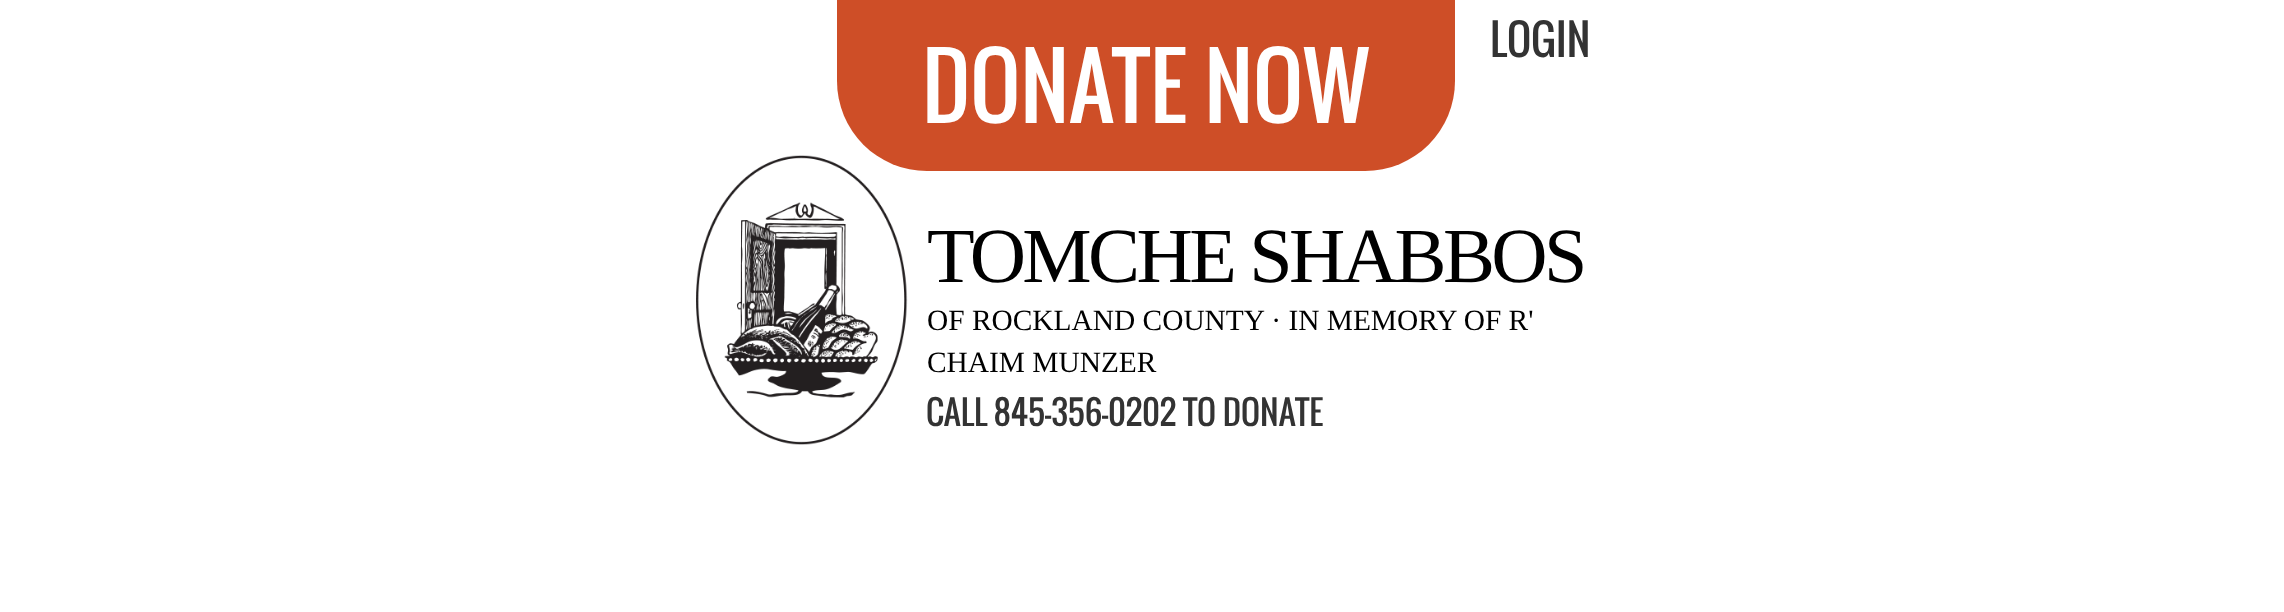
(async () => {
    const canvas = document.querySelector("canvas");
    canvas.width = 2284;
    canvas.height = 612;
    const context = canvas.getContext("2d");
    context.miterLimit = 4;
    context.fontKerning = "normal";
    function write(s, x, y, font, color) {
        context.font = font;
        context.fillStyle = color;
        context.fillText(s, x, y);
    }
    function block(x, y, w, h, color) {
        context.fillStyle = color;
        context.fillRect(x, y, w, h);
    }
    async function photo(src, x, y, w, h) {
        const img = new Image();
        img.src = src;
        await img.decode();
        context.drawImage(img, x, y, w, h);
    }

    block(0, 0, 2284, 612, "rgb(255, 255, 255)");
    write("LOGIN", 1490, 57, "42px Oswald", "rgb(51, 51, 51)");
    context.fillStyle = "rgb(206, 78, 39)";
    context.beginPath();
    context.roundRect(837, 0, 618, 171, [0, 0, 90, 90]);
    context.fill();
    write("DONATE NOW", 922, 123, "87px Oswald", "rgb(255, 255, 255)");
    await photo("media/1.png", 696, 155, 212, 290);
    context.letterSpacing = "-3.6px";
    write("TOMCHE SHABBOS", 927, 282, "78px Liberation Serif", "rgb(0, 0, 0)");
    context.letterSpacing = "0px";
    write("OF ROCKLAND COUNTY · IN MEMORY OF R'", 927, 330, "29.4px Liberation Serif", "rgb(0, 0, 0)");
    write("CHAIM MUNZER", 927, 372, "29.4px Liberation Serif", "rgb(0, 0, 0)");
    write("CALL 845-356-0202 TO DONATE", 926, 426, "33px Oswald", "rgb(51, 51, 51)");
})();
